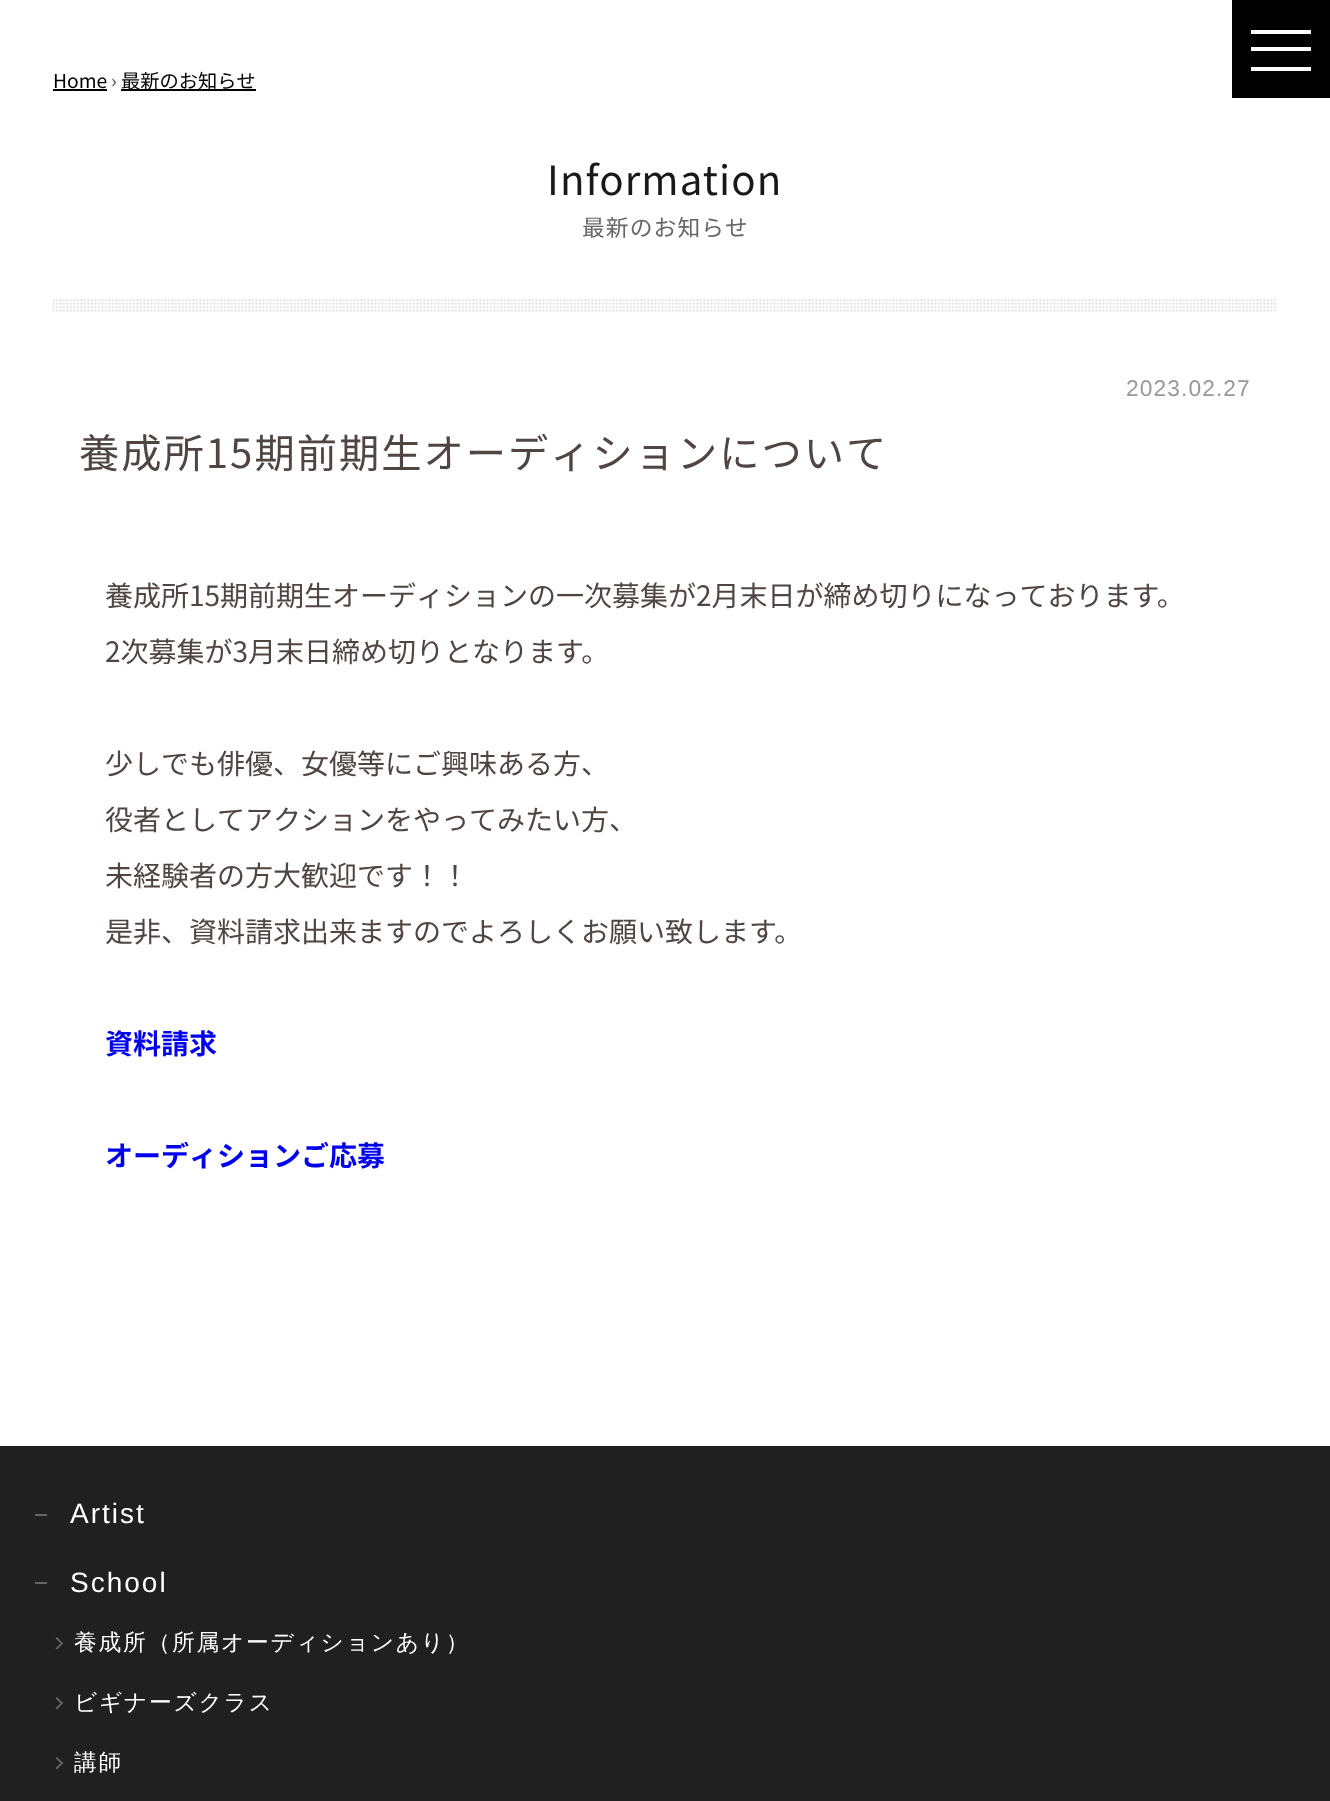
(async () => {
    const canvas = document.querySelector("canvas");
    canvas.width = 1330;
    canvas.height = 1801;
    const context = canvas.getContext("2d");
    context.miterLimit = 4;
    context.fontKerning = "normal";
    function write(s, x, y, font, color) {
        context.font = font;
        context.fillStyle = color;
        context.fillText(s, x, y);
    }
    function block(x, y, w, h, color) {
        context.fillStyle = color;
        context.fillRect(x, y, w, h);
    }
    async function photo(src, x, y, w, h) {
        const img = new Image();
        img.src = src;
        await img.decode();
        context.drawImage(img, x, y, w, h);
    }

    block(0, 0, 1330, 1801, "rgb(255, 255, 255)");
    block(1232, 0, 98, 98, "rgb(0, 0, 0)");
    block(1251, 30, 60, 4, "rgb(255, 255, 255)");
    block(1251, 47, 60, 4, "rgb(255, 255, 255)");
    block(1251, 67, 60, 4, "rgb(255, 255, 255)");
    write("Home", 53, 88, "19.25px Noto Sans JP", "rgb(0, 0, 0)");
    block(53, 89, 54, 2, "rgb(0, 0, 0)");
    write("›", 111, 88, "19.25px Noto Sans JP", "rgb(79, 70, 67)");
    block(121, 89, 135, 2, "rgb(0, 0, 0)");
    write("最新のお知らせ", 121, 88, "19.25px Noto Sans JP", "rgb(0, 0, 0)");
    await photo("media/1.png", 52, 299, 1226, 13);
    context.letterSpacing = "1.1px";
    write("Information", 547, 195, "40.25px Noto Sans JP", "rgb(24, 24, 24)");
    write("最新のお知らせ", 582, 236, "22.75px Noto Sans JP", "rgb(102, 102, 102)");
    write("2023.02.27", 1126, 396, "22.75px Liberation Sans", "rgb(153, 153, 153)");
    context.letterSpacing = "2px";
    write("養成所15期前期生オーディションについて", 79, 468, "40.25px Noto Sans JP", "rgb(79, 70, 67)");
    context.letterSpacing = "0px";
    write("養成所15期前期生オーディションの一次募集が2月末日が締め切りになっております。", 105, 606, "28px Noto Sans JP", "rgb(79, 70, 67)");
    write("2次募集が3月末日締め切りとなります。", 105, 662, "28px Noto Sans JP", "rgb(79, 70, 67)");
    write("少しでも俳優、女優等にご興味ある方、", 105, 774, "28px Noto Sans JP", "rgb(79, 70, 67)");
    write("役者としてアクションをやってみたい方、", 105, 830, "28px Noto Sans JP", "rgb(79, 70, 67)");
    write("未経験者の方大歓迎です！！", 105, 886, "28px Noto Sans JP", "rgb(79, 70, 67)");
    write("是非、資料請求出来ますのでよろしくお願い致します。", 105, 942, "28px Noto Sans JP", "rgb(79, 70, 67)");
    write("資料請求", 105, 1054, "bold 28px Noto Sans JP", "rgb(0, 0, 238)");
    write("オーディションご応募", 105, 1166, "bold 28px Noto Sans JP", "rgb(0, 0, 238)");
    block(0, 1446, 1330, 355, "rgb(32, 32, 32)");
    block(35, 1514, 12, 2, "rgb(102, 102, 102)");
    context.letterSpacing = "2px";
    write("Artist", 70, 1523, "28px Liberation Sans", "rgb(255, 255, 255)");
    block(35, 1582, 12, 2, "rgb(102, 102, 102)");
    write("School", 70, 1592, "28px Liberation Sans", "rgb(255, 255, 255)");
    context.fillStyle = "rgb(102, 102, 102)";
    context.beginPath();
    context.moveTo(57, 1637);
    context.lineTo(63, 1643.5);
    context.lineTo(62, 1644.5);
    context.lineTo(55.5, 1638.5);
    context.closePath();
    context.fill();
    context.beginPath();
    context.moveTo(62, 1642);
    context.lineTo(63, 1643.5);
    context.lineTo(57, 1649.5);
    context.lineTo(55.5, 1648.5);
    context.closePath();
    context.fill();
    context.letterSpacing = "1.75px";
    write("養成所（所属オーディションあり）", 74, 1650, "500 22.75px WenQuanYi Zen Hei", "rgb(255, 255, 255)");
    context.fillStyle = "rgb(102, 102, 102)";
    context.beginPath();
    context.moveTo(57, 1697);
    context.lineTo(63, 1703);
    context.lineTo(62, 1704.5);
    context.lineTo(55.5, 1698.5);
    context.closePath();
    context.fill();
    context.beginPath();
    context.moveTo(62, 1702);
    context.lineTo(63, 1703);
    context.lineTo(57, 1709.5);
    context.lineTo(55.5, 1708);
    context.closePath();
    context.fill();
    write("ビギナーズクラス", 74, 1710, "500 22.75px WenQuanYi Zen Hei", "rgb(255, 255, 255)");
    context.fillStyle = "rgb(102, 102, 102)";
    context.beginPath();
    context.moveTo(57, 1757);
    context.lineTo(63, 1763);
    context.lineTo(62, 1764.5);
    context.lineTo(55.5, 1758);
    context.closePath();
    context.fill();
    context.beginPath();
    context.moveTo(62, 1762);
    context.lineTo(63, 1763);
    context.lineTo(57, 1769.5);
    context.lineTo(55.5, 1768);
    context.closePath();
    context.fill();
    write("講師", 74, 1770, "500 22.75px WenQuanYi Zen Hei", "rgb(255, 255, 255)");
})();
